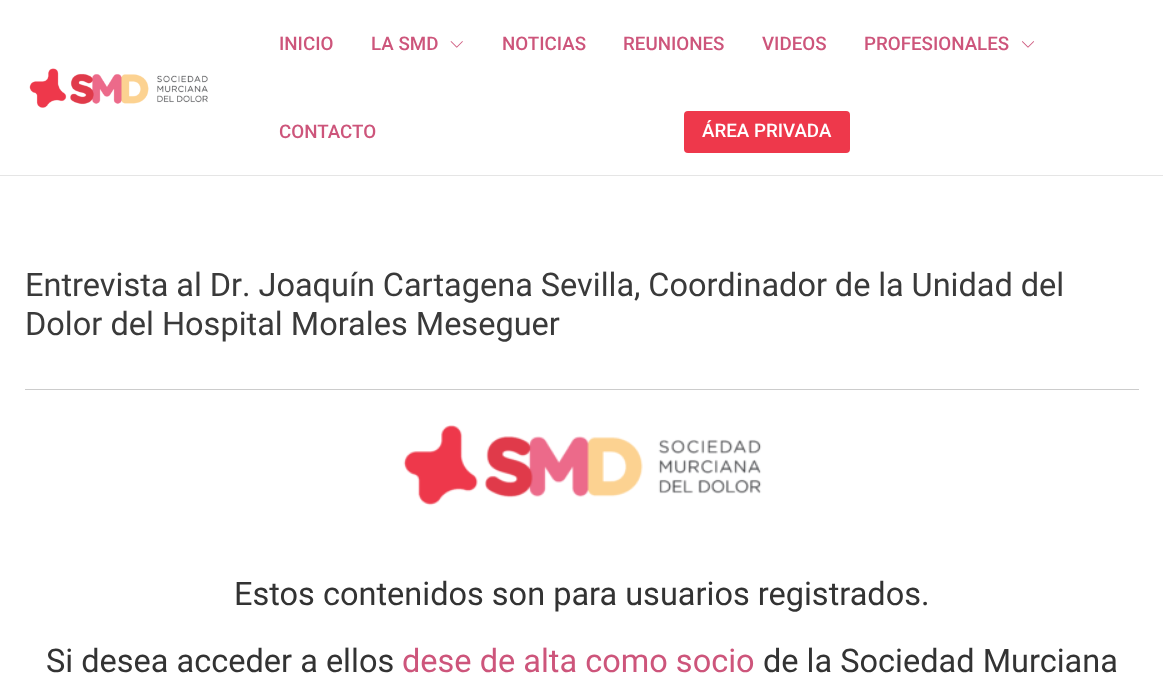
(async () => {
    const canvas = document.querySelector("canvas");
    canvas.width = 1163;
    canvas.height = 678;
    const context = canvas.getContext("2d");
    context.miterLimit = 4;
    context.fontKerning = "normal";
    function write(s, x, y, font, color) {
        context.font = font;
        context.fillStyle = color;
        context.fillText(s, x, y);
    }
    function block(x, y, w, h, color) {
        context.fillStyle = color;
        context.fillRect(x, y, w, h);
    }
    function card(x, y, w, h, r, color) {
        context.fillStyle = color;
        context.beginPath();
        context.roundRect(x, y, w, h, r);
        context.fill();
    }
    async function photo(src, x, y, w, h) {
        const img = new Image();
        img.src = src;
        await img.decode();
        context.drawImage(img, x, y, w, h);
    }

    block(0, 0, 1163, 678, "rgb(255, 255, 255)");
    block(0, 175, 1163, 1, "rgb(229, 229, 229)");
    await photo("media/1.png", 29, 68, 179, 40);
    write("INICIO", 279, 50, "500 18.75px Roboto", "rgb(205, 85, 123)");
    write("LA SMD", 371, 50, "500 18.75px Roboto", "rgb(205, 85, 123)");
    await photo("media/2.png", 450, 41, 13, 7);
    write("NOTICIAS", 502, 50, "500 18.75px Roboto", "rgb(205, 85, 123)");
    write("REUNIONES", 623, 50, "500 18.75px Roboto", "rgb(205, 85, 123)");
    write("VIDEOS", 762, 50, "500 18.75px Roboto", "rgb(205, 85, 123)");
    write("PROFESIONALES", 864, 50, "500 18.75px Roboto", "rgb(205, 85, 123)");
    await photo("media/3.png", 1022, 41, 12, 7);
    write("CONTACTO", 279, 138, "500 18.75px Roboto", "rgb(205, 85, 123)");
    card(684, 111, 166, 42, 4, "rgb(238, 56, 75)");
    write("ÁREA PRIVADA", 702, 137, "500 18.75px Roboto", "rgb(255, 255, 255)");
    context.wordSpacing = "-0.25px";
    write("Entrevista al Dr. Joaquín Cartagena Sevilla, Coordinador de la Unidad del", 25, 296, "32.5px Roboto", "rgb(58, 58, 58)");
    context.wordSpacing = "0px";
    write("Dolor del Hospital Morales Meseguer", 25, 335, "32.5px Roboto", "rgb(58, 58, 58)");
    block(25, 389, 1114, 1, "rgb(204, 204, 204)");
    await photo("media/4.png", 403, 425, 359, 81);
    write("Estos contenidos son para usuarios registrados.", 234, 605, "32.5px Roboto", "rgb(51, 51, 51)");
    write("Si desea acceder a ellos", 46, 672, "32.5px Roboto", "rgb(51, 51, 51)");
    write("dese de alta como socio", 402, 672, "32.5px Roboto", "rgb(205, 85, 123)");
    write("de la Sociedad Murciana", 763, 672, "32.5px Roboto", "rgb(51, 51, 51)");
})();
